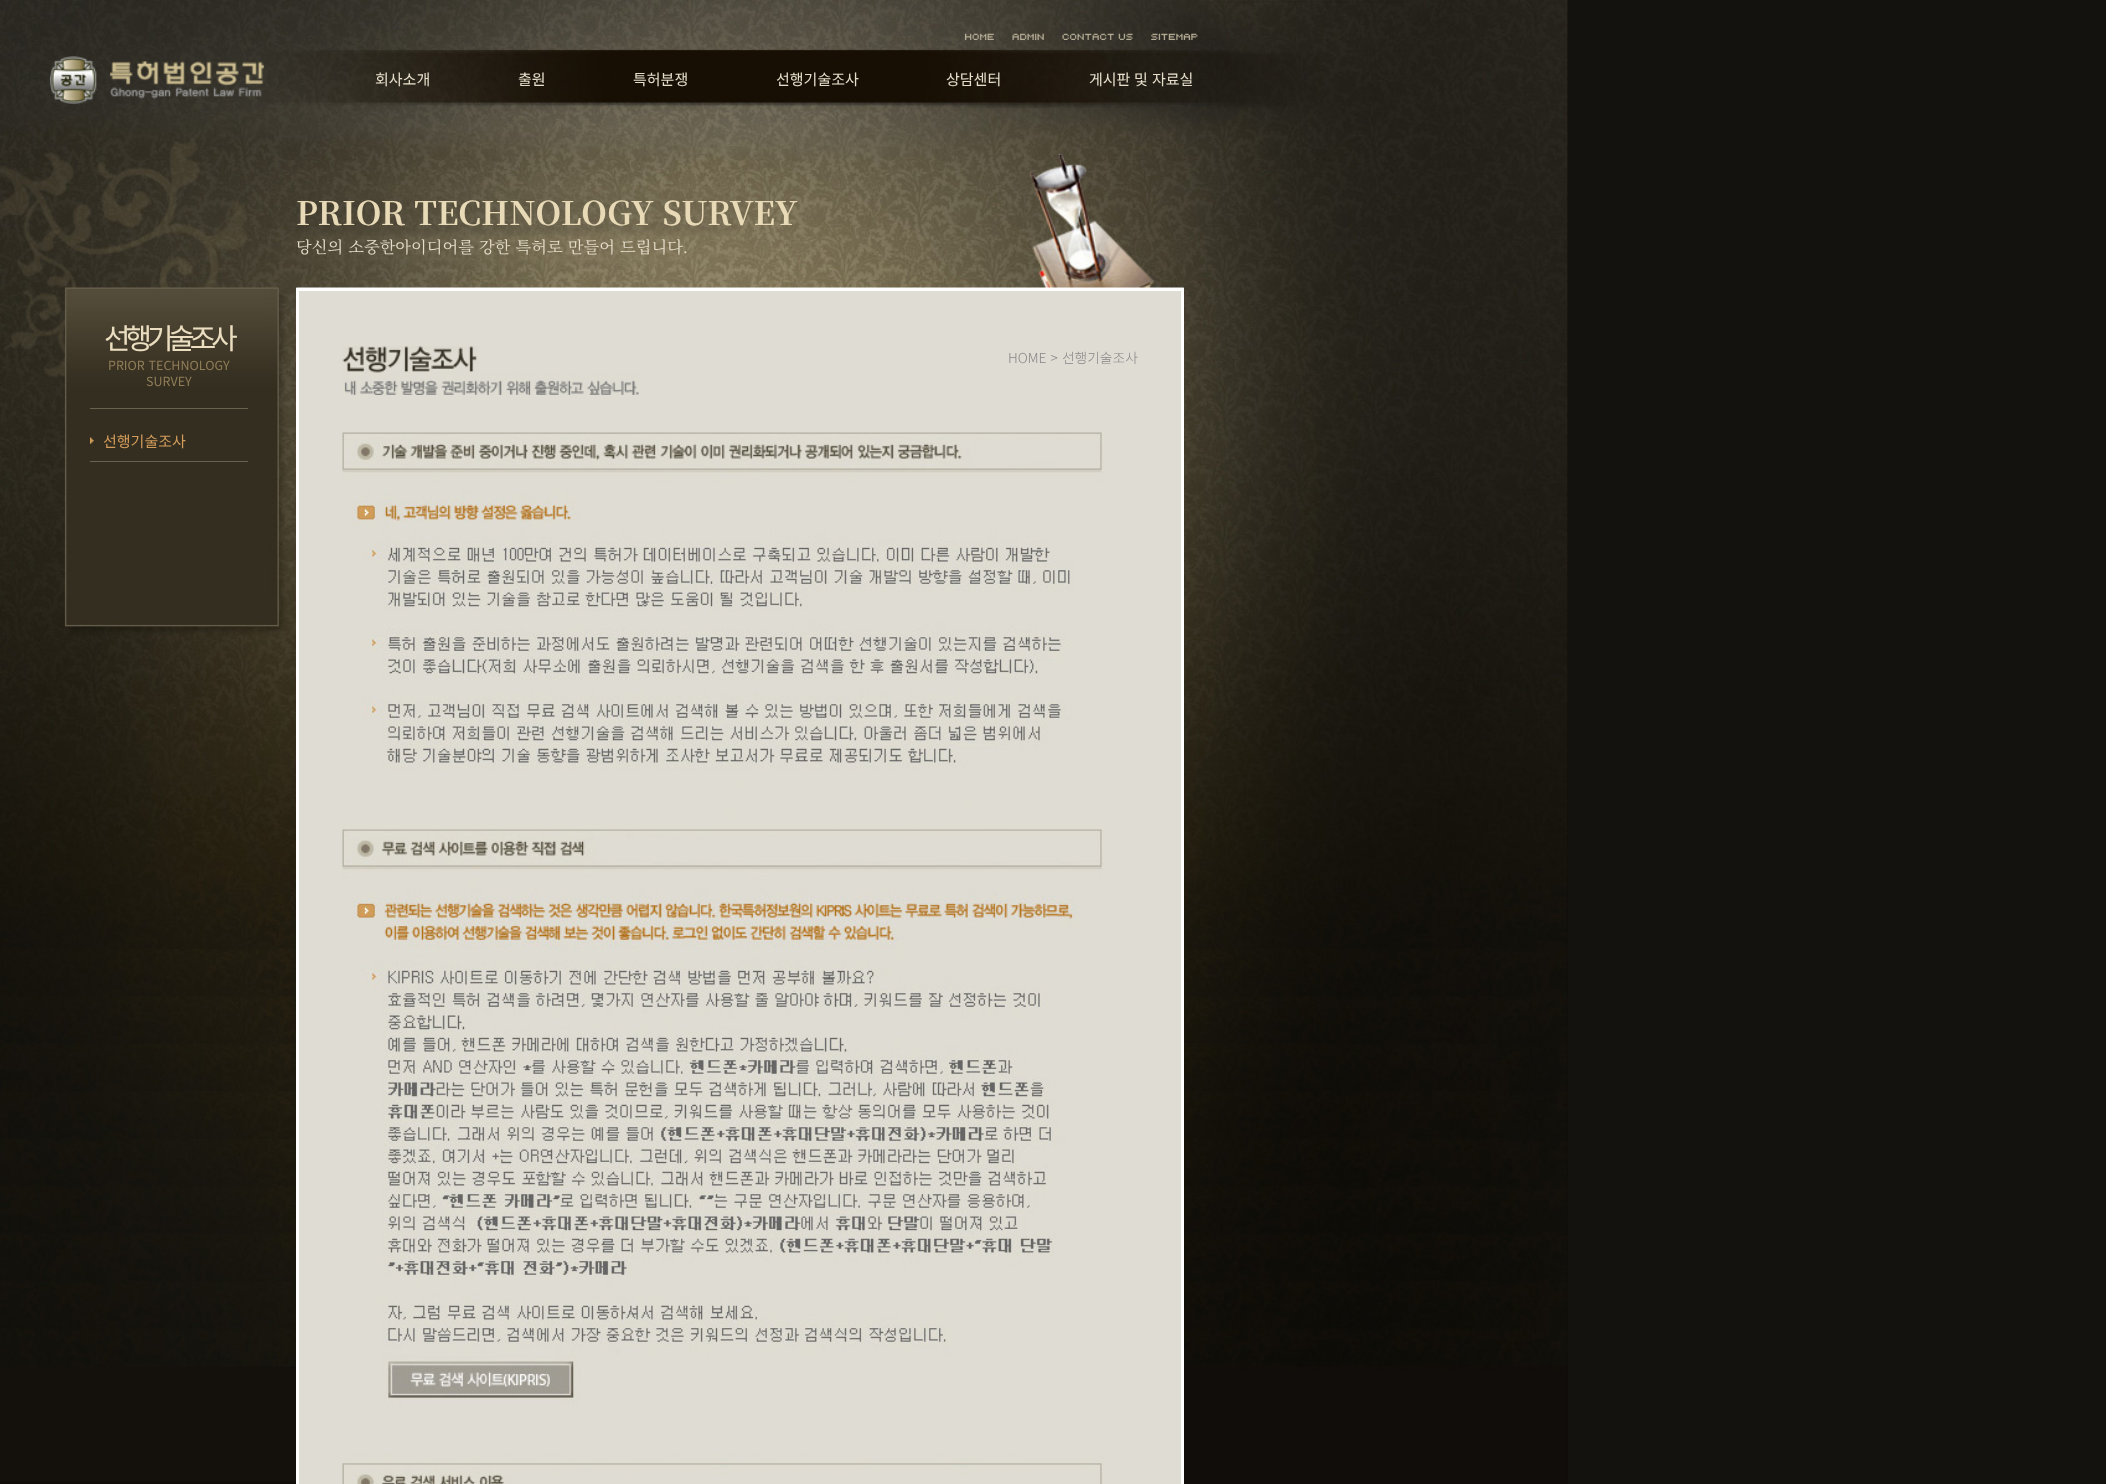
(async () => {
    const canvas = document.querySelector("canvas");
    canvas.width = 2106;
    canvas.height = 1484;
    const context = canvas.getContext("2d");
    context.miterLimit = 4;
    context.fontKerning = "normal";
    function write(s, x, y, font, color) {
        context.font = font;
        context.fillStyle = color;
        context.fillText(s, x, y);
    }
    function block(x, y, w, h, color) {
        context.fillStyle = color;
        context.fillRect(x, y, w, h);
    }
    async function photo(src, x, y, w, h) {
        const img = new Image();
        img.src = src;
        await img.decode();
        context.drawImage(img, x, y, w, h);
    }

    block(0, 0, 2106, 1484, "rgb(19, 18, 14)");
    block(0, 0, 1568, 1484, "rgb(17, 13, 10)");
    await photo("media/7.png", 0, 0, 1568, 1482);
    await photo("media/1.png", 50, 56, 214, 48);
    await photo("media/2.png", 965, 33, 29, 7);
    await photo("media/3.png", 1012, 33, 32, 7);
    await photo("media/4.png", 1062, 33, 71, 7);
    await photo("media/5.png", 1151, 33, 47, 7);
    write("회사소개", 375, 85, "100 15px Noto Sans KR", "rgb(230, 222, 203)");
    write("출원", 518, 85, "100 15px Noto Sans KR", "rgb(230, 222, 203)");
    write("특허분쟁", 633, 85, "100 15px Noto Sans KR", "rgb(230, 222, 203)");
    write("선행기술조사", 776, 85, "100 15px Noto Sans KR", "rgb(230, 222, 203)");
    write("상담센터", 946, 85, "100 15px Noto Sans KR", "rgb(230, 222, 203)");
    write("게시판", 1089, 85, "100 15px Noto Sans KR", "rgb(230, 222, 203)");
    write("및", 1134, 85, "100 15px Noto Sans KR", "rgb(230, 222, 203)");
    write("자료실", 1152, 85, "100 15px Noto Sans KR", "rgb(230, 222, 203)");
    context.wordSpacing = "1px";
    write("PRIOR TECHNOLOGY SURVEY", 296, 225, "bold 32.5px Noto Serif KR", "rgb(233, 218, 183)");
    write("당신의 소중한아이디어를 강한 특허로 만들어 드립니다.", 296, 253, "16.25px Noto Serif KR", "rgb(230, 222, 203)");
    block(90, 408, 158, 1, "rgb(105, 98, 79)");
    context.letterSpacing = "-5px";
    context.wordSpacing = "0px";
    write("선행기술조사", 104, 349, "100 28.75px Noto Sans KR", "rgb(235, 222, 192)");
    context.letterSpacing = "0px";
    context.wordSpacing = "1px";
    write("PRIOR TECHNOLOGY", 108, 370, "100 12.5px Noto Sans KR", "rgb(144, 126, 88)");
    context.wordSpacing = "0px";
    write("SURVEY", 146, 386, "100 12.5px Noto Sans KR", "rgb(144, 126, 88)");
    block(90, 461, 158, 1, "rgb(105, 98, 79)");
    await photo("media/6.png", 90, 437, 4, 7);
    write("선행기술조사", 103, 447, "100 15px Noto Sans KR", "rgb(211, 156, 91)");
    context.fillStyle = "rgb(223, 220, 211)";
    context.beginPath();
    context.rect(297.5, 289.5, 885, 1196);
    context.fill();
    context.strokeStyle = "rgb(255, 255, 255)";
    context.lineWidth = 3;
    context.stroke();
    await photo("media/8.png", 342, 346, 297, 49);
    context.wordSpacing = "1px";
    write("HOME > 선행기술조사", 1008, 363, "300 13.75px Noto Sans KR", "rgb(135, 133, 134)");
    await photo("media/9.png", 342, 432, 763, 1052);
})();
